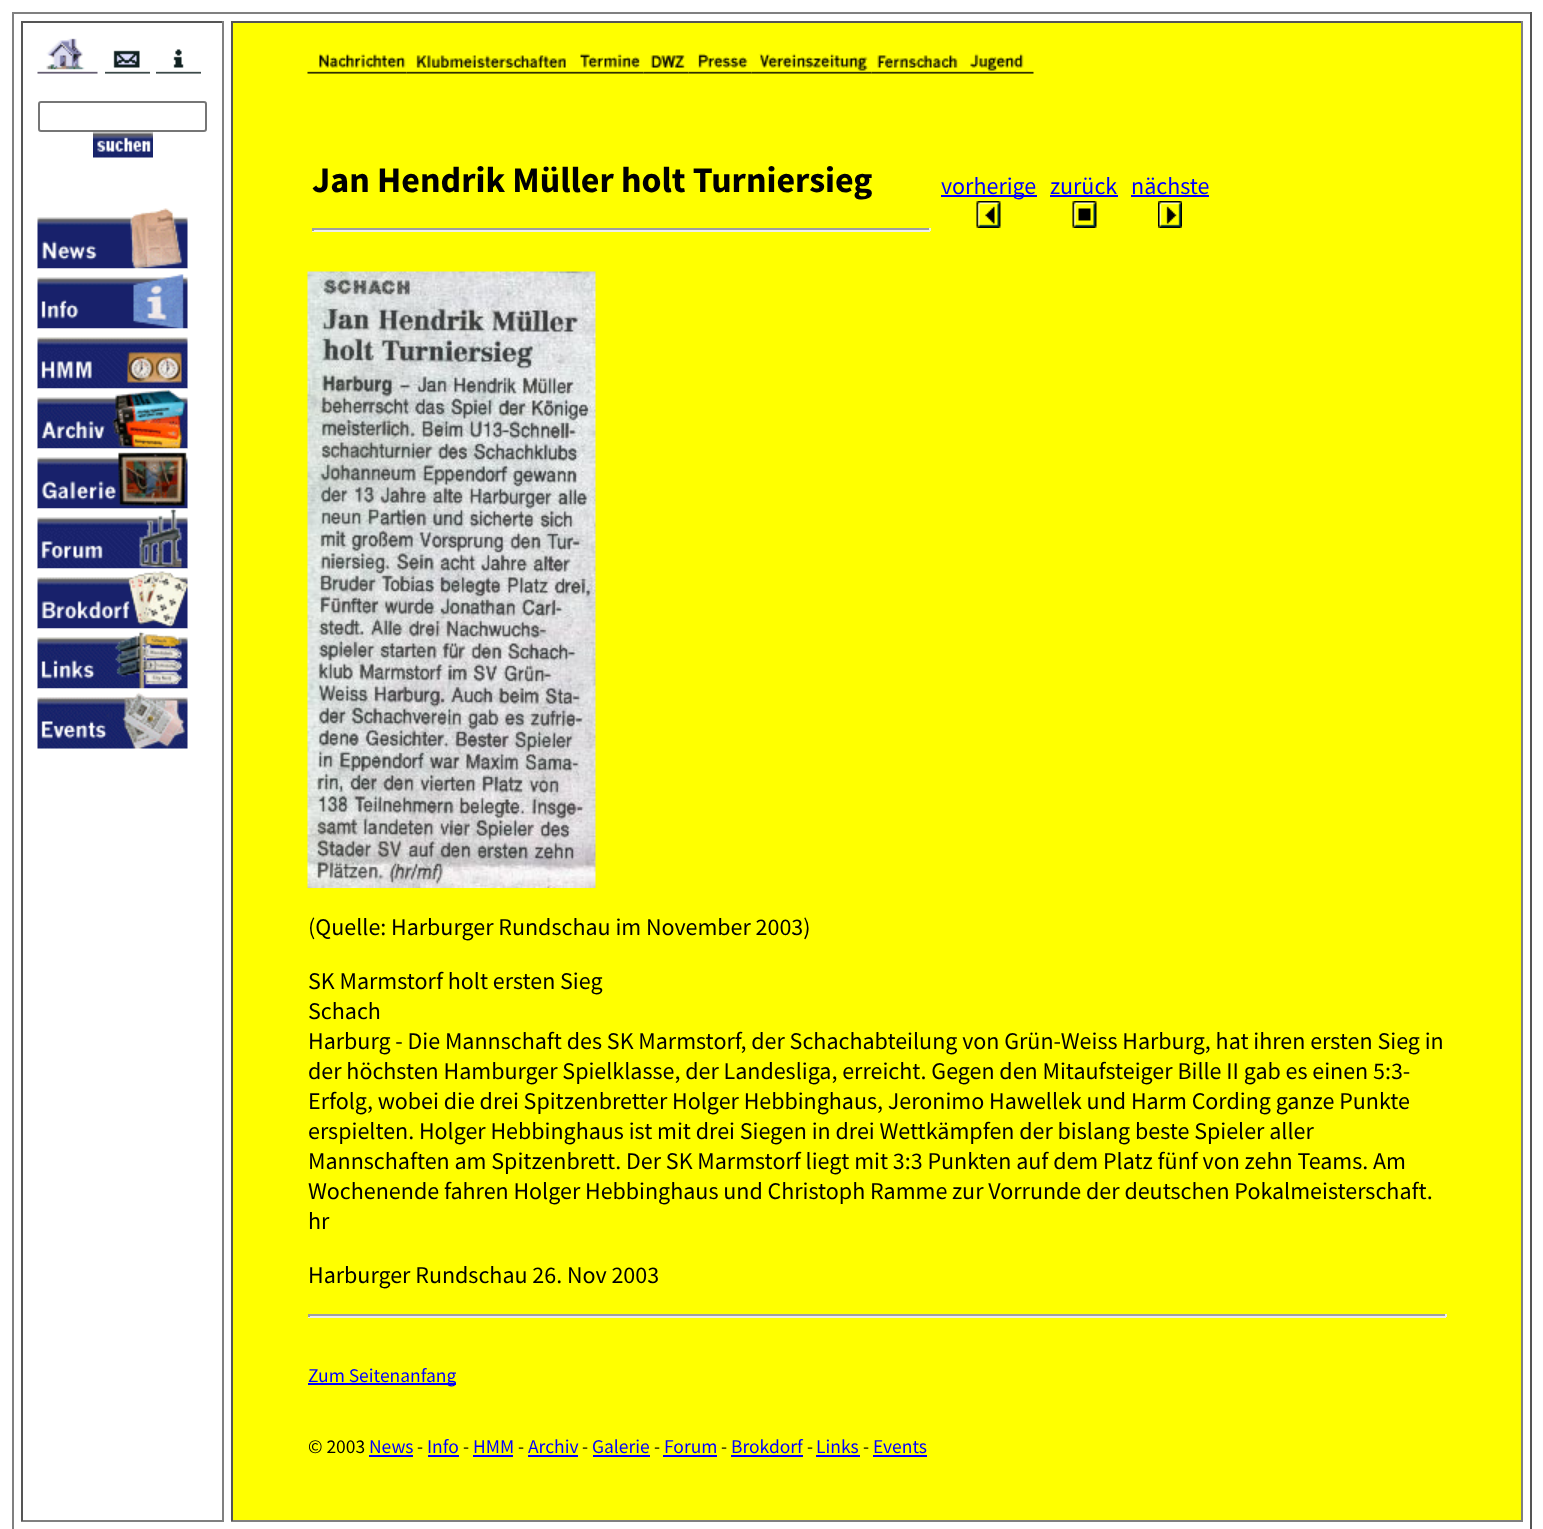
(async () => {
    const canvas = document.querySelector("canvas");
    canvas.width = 1543;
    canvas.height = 1529;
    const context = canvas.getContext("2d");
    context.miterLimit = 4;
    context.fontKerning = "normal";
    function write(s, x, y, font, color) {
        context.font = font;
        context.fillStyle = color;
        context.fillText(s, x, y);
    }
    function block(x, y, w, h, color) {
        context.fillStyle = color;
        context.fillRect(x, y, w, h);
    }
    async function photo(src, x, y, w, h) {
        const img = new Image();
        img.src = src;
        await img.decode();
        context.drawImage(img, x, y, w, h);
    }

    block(0, 0, 1543, 1529, "rgb(255, 255, 255)");
    block(12, 12, 1520, 2, "rgb(128, 128, 128)");
    block(1530, 12, 2, 1517, "rgb(85, 85, 85)");
    block(12, 12, 2, 1517, "rgb(128, 128, 128)");
    block(21, 21, 203, 2, "rgb(85, 85, 85)");
    block(222, 21, 2, 1500, "rgb(128, 128, 128)");
    block(21, 1520, 203, 2, "rgb(128, 128, 128)");
    block(21, 21, 2, 1500, "rgb(85, 85, 85)");
    await photo("media/1.png", 37, 38, 61, 36);
    await photo("media/2.png", 105, 50, 45, 24);
    await photo("media/3.png", 156, 49, 45, 25);
    context.beginPath();
    context.roundRect(39, 102, 167, 29, 2);
    context.strokeStyle = "rgb(118, 118, 118)";
    context.lineWidth = 2;
    context.stroke();
    await photo("media/4.png", 93, 132, 60, 26);
    await photo("media/5.png", 37, 208, 151, 61);
    await photo("media/6.png", 37, 268, 151, 61);
    await photo("media/7.png", 37, 328, 151, 61);
    await photo("media/8.png", 37, 388, 151, 61);
    await photo("media/9.png", 37, 448, 151, 61);
    await photo("media/10.png", 37, 508, 151, 61);
    await photo("media/11.png", 37, 568, 151, 61);
    await photo("media/12.png", 37, 628, 151, 61);
    await photo("media/13.png", 37, 688, 151, 61);
    block(233, 23, 1288, 1497, "rgb(255, 255, 0)");
    block(231, 21, 1292, 2, "rgb(85, 85, 85)");
    block(1521, 21, 2, 1500, "rgb(128, 128, 128)");
    block(231, 1520, 1292, 2, "rgb(128, 128, 128)");
    block(231, 21, 2, 1500, "rgb(85, 85, 85)");
    await photo("media/14.png", 307, 53, 100, 21);
    await photo("media/15.png", 406, 55, 164, 19);
    await photo("media/16.png", 570, 53, 74, 21);
    await photo("media/17.png", 643, 55, 46, 19);
    await photo("media/18.png", 688, 53, 64, 21);
    await photo("media/19.png", 751, 53, 121, 21);
    await photo("media/20.png", 871, 55, 89, 19);
    await photo("media/21.png", 960, 53, 74, 21);
    write("Jan Hendrik Müller holt Turniersieg", 312, 192, "bold 36px Source Sans Pro", "rgb(0, 0, 0)");
    block(312, 228, 618, 2, "rgb(159, 159, 159)");
    block(929, 228, 2, 3, "rgb(238, 238, 238)");
    block(312, 230, 618, 2, "rgb(238, 238, 238)");
    block(312, 228, 2, 3, "rgb(159, 159, 159)");
    block(941, 195, 96, 2, "rgb(0, 0, 255)");
    write("vorherige", 941, 194, "24px Source Sans Pro", "rgb(0, 0, 255)");
    await photo("media/22.png", 976, 201, 25, 27);
    write("zurück", 1050, 194, "24px Source Sans Pro", "rgb(0, 0, 255)");
    block(1050, 195, 68, 2, "rgb(0, 0, 255)");
    await photo("media/23.png", 1072, 201, 25, 27);
    write("nächste", 1131, 194, "24px Source Sans Pro", "rgb(0, 0, 255)");
    block(1131, 195, 78, 2, "rgb(0, 0, 255)");
    await photo("media/24.png", 1158, 201, 24, 27);
    await photo("media/25.png", 307, 271, 289, 617);
    write("(Quelle: Harburger Rundschau im November 2003)", 308, 935, "24px Source Sans Pro", "rgb(0, 0, 0)");
    write("SK Marmstorf holt ersten Sieg", 308, 989, "24px Source Sans Pro", "rgb(0, 0, 0)");
    write("Schach", 308, 1019, "24px Source Sans Pro", "rgb(0, 0, 0)");
    write("Harburg - Die Mannschaft des SK Marmstorf, der Schachabteilung von Grün-Weiss Harburg, hat ihren ersten Sieg in", 308, 1049, "24px Source Sans Pro", "rgb(0, 0, 0)");
    write("der höchsten Hamburger Spielklasse, der Landesliga, erreicht. Gegen den Mitaufsteiger Bille II gab es einen 5:3-", 308, 1079, "24px Source Sans Pro", "rgb(0, 0, 0)");
    write("Erfolg, wobei die drei Spitzenbretter Holger Hebbinghaus, Jeronimo Hawellek und Harm Cording ganze Punkte", 308, 1109, "24px Source Sans Pro", "rgb(0, 0, 0)");
    write("erspielten. Holger Hebbinghaus ist mit drei Siegen in drei Wettkämpfen der bislang beste Spieler aller", 308, 1139, "24px Source Sans Pro", "rgb(0, 0, 0)");
    write("Mannschaften am Spitzenbrett. Der SK Marmstorf liegt mit 3:3 Punkten auf dem Platz fünf von zehn Teams. Am", 308, 1169, "24px Source Sans Pro", "rgb(0, 0, 0)");
    write("Wochenende fahren Holger Hebbinghaus und Christoph Ramme zur Vorrunde der deutschen Pokalmeisterschaft.", 308, 1199, "24px Source Sans Pro", "rgb(0, 0, 0)");
    write("hr", 308, 1229, "24px Source Sans Pro", "rgb(0, 0, 0)");
    write("Harburger Rundschau 26. Nov 2003", 308, 1283, "24px Source Sans Pro", "rgb(0, 0, 0)");
    block(308, 1314, 1138, 2, "rgb(159, 159, 159)");
    block(1445, 1314, 2, 3, "rgb(238, 238, 238)");
    block(308, 1316, 1138, 2, "rgb(238, 238, 238)");
    block(308, 1314, 2, 3, "rgb(159, 159, 159)");
    block(308, 1383, 148, 2, "rgb(0, 0, 255)");
    write("Zum Seitenanfang", 308, 1382, "19.5px Source Sans Pro", "rgb(0, 0, 255)");
    write("© 2003", 308, 1453, "19.5px Source Sans Pro", "rgb(0, 0, 0)");
    write("News", 369, 1453, "19.5px Source Sans Pro", "rgb(0, 0, 255)");
    block(369, 1455, 44, 2, "rgb(0, 0, 255)");
    write("-", 417, 1453, "19.5px Source Sans Pro", "rgb(0, 0, 0)");
    write("Info", 427, 1453, "19.5px Source Sans Pro", "rgb(0, 0, 255)");
    block(428, 1455, 31, 2, "rgb(0, 0, 255)");
    write("-", 463, 1453, "19.5px Source Sans Pro", "rgb(0, 0, 0)");
    write("HMM", 473, 1453, "19.5px Source Sans Pro", "rgb(0, 0, 255)");
    block(473, 1455, 40, 2, "rgb(0, 0, 255)");
    write("-", 518, 1453, "19.5px Source Sans Pro", "rgb(0, 0, 0)");
    write("Archiv", 528, 1453, "19.5px Source Sans Pro", "rgb(0, 0, 255)");
    block(528, 1455, 50, 2, "rgb(0, 0, 255)");
    write("-", 582, 1453, "19.5px Source Sans Pro", "rgb(0, 0, 0)");
    write("Galerie", 592, 1453, "19.5px Source Sans Pro", "rgb(0, 0, 255)");
    block(593, 1455, 57, 2, "rgb(0, 0, 255)");
    write("-", 654, 1453, "19.5px Source Sans Pro", "rgb(0, 0, 0)");
    write("Forum", 664, 1453, "19.5px Source Sans Pro", "rgb(0, 0, 255)");
    block(663, 1455, 54, 2, "rgb(0, 0, 255)");
    write("-", 721, 1453, "19.5px Source Sans Pro", "rgb(0, 0, 0)");
    write("Brokdorf", 731, 1453, "19.5px Source Sans Pro", "rgb(0, 0, 255)");
    block(731, 1455, 72, 2, "rgb(0, 0, 255)");
    write("-", 807, 1453, "19.5px Source Sans Pro", "rgb(0, 0, 0)");
    write("Links", 816, 1453, "19.5px Source Sans Pro", "rgb(0, 0, 255)");
    block(816, 1455, 44, 2, "rgb(0, 0, 255)");
    write("-", 863, 1453, "19.5px Source Sans Pro", "rgb(0, 0, 0)");
    write("Events", 873, 1453, "19.5px Source Sans Pro", "rgb(0, 0, 255)");
    block(873, 1455, 54, 2, "rgb(0, 0, 255)");
})();
